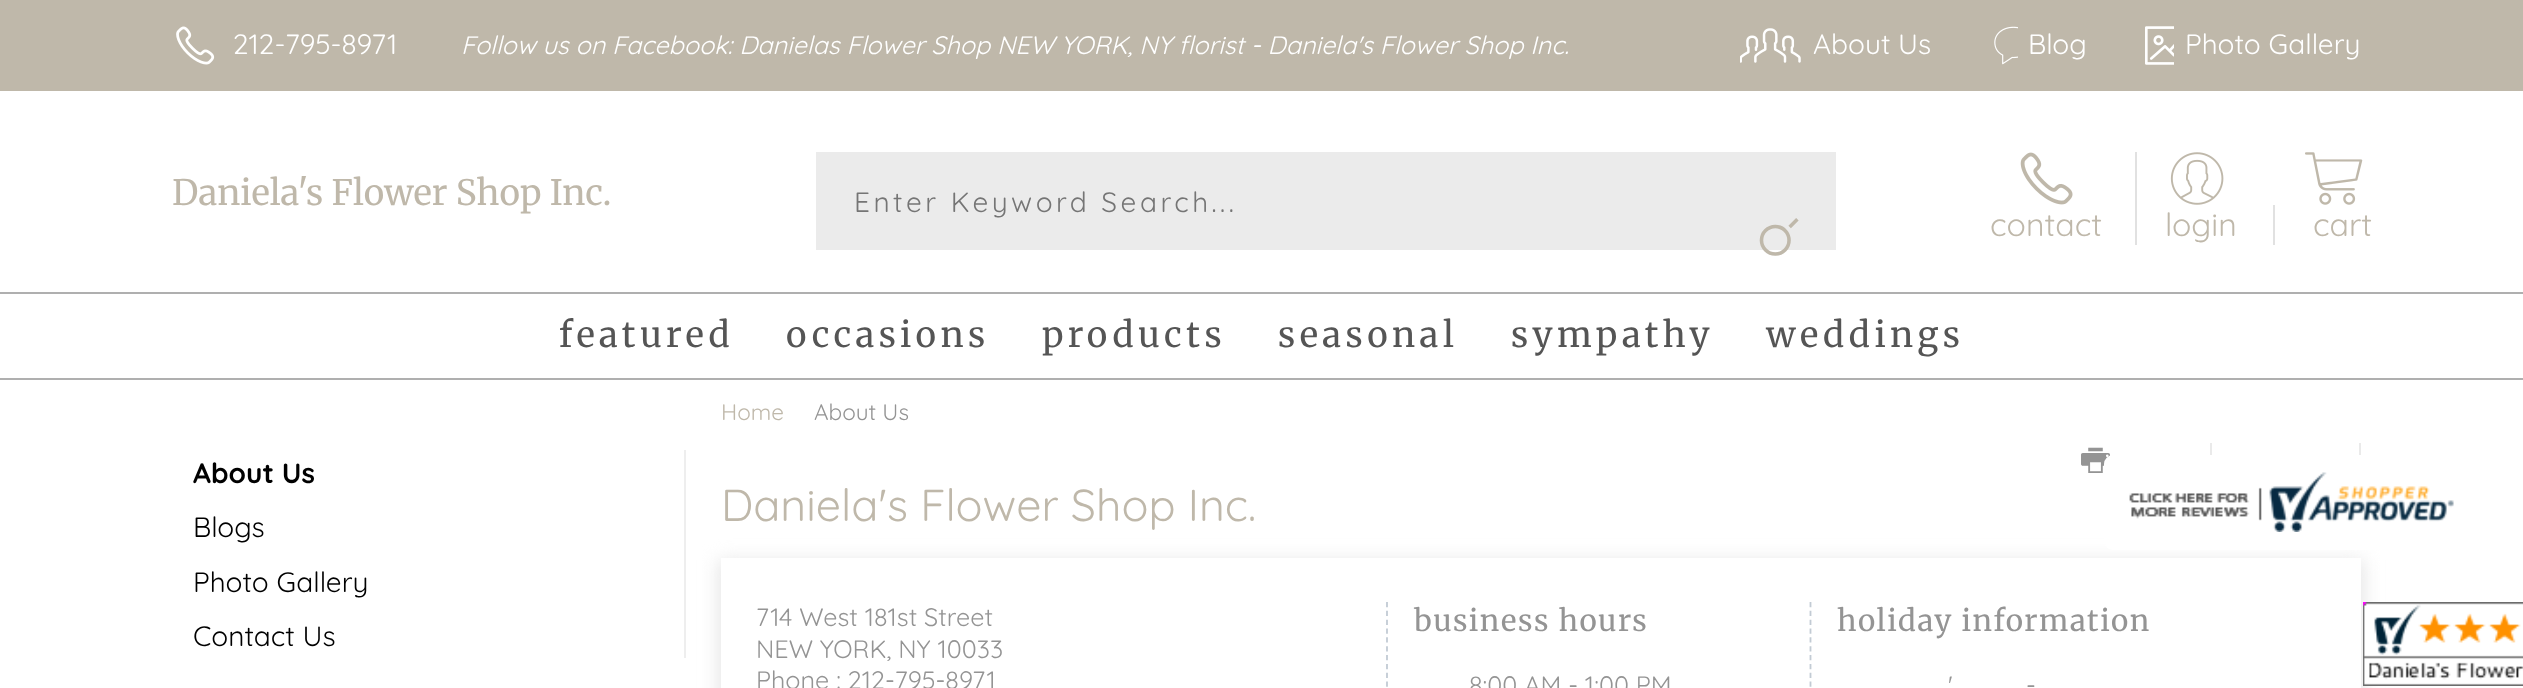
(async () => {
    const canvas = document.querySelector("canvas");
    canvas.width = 2523;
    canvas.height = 688;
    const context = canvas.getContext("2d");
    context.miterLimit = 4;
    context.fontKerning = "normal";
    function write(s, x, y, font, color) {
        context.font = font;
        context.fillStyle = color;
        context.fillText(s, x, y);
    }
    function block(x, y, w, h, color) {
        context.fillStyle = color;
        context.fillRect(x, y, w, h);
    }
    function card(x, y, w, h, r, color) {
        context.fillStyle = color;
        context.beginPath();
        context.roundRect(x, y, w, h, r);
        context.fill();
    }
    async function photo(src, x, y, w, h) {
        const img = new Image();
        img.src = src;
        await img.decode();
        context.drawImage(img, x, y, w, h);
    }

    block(0, 0, 2523, 688, "rgb(255, 255, 255)");
    block(0, 0, 2523, 91, "rgb(191, 184, 170)");
    await photo("media/1.png", 176, 26, 39, 39);
    write("212-795-8971", 233, 54, "28px Quicksand", "rgb(255, 255, 255)");
    write("Follow us on Facebook: Danielas Flower Shop", 461, 54, "italic 25.2px Quicksand", "rgb(255, 255, 255)");
    write("NEW YORK, NY florist - Daniela's Flower Shop Inc.", 997, 54, "italic 25.2px Quicksand", "rgb(255, 255, 255)");
    await photo("media/2.png", 1740, 28, 61, 35);
    write("About Us", 1813, 54, "28px Quicksand", "rgb(255, 255, 255)");
    await photo("media/3.png", 1994, 26, 24, 39);
    write("Blog", 2028, 54, "28px Quicksand", "rgb(255, 255, 255)");
    await photo("media/4.png", 2145, 26, 29, 39);
    write("Photo Gallery", 2185, 54, "28px Quicksand", "rgb(255, 255, 255)");
    write("Daniela's Flower Shop Inc.", 172, 205, "35px Merriweather", "rgb(191, 184, 170)");
    block(816, 152, 1020, 98, "rgb(235, 235, 235)");
    context.letterSpacing = "3.5px";
    write("Enter Keyword Search...", 854, 212, "28px Quicksand", "rgb(117, 117, 117)");
    context.letterSpacing = "0px";
    context.font = "42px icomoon";
    context.fillStyle = "rgb(191, 184, 170)";
    context.save();
    context.translate(1800, 219);
    context.rotate(180 * Math.PI / 180);
    context.fillText("'", 0, 0);
    context.restore();
    await photo("media/5.png", 2020, 152, 53, 53);
    write("contact", 1990, 236, "32px Quicksand", "rgb(191, 184, 170)");
    block(2135, 152, 2, 93, "rgb(225, 225, 225)");
    block(2273, 205, 2, 40, "rgb(225, 225, 225)");
    await photo("media/6.png", 2170, 152, 54, 53);
    write("login", 2165, 236, "32px Quicksand", "rgb(191, 184, 170)");
    await photo("media/7.png", 2305, 152, 58, 53);
    write("cart", 2313, 236, "32px Quicksand", "rgb(191, 184, 170)");
    block(0, 292, 2523, 2, "rgb(175, 175, 175)");
    block(0, 378, 2523, 2, "rgb(175, 175, 175)");
    context.letterSpacing = "4.4px";
    write("featured", 559, 347, "35px Merriweather", "rgb(85, 85, 85)");
    write("occasions", 786, 347, "35px Merriweather", "rgb(85, 85, 85)");
    write("products", 1042, 347, "35px Merriweather", "rgb(85, 85, 85)");
    write("seasonal", 1278, 347, "35px Merriweather", "rgb(85, 85, 85)");
    write("sympathy", 1511, 347, "35px Merriweather", "rgb(85, 85, 85)");
    write("weddings", 1766, 347, "35px Merriweather", "rgb(85, 85, 85)");
    block(684, 450, 2, 208, "rgb(238, 238, 238)");
    context.letterSpacing = "0px";
    write("About Us", 193, 483, "bold 28px Quicksand", "rgb(0, 0, 0)");
    write("Blogs", 193, 537, "28px Quicksand", "rgb(0, 0, 0)");
    write("Photo Gallery", 193, 592, "28px Quicksand", "rgb(0, 0, 0)");
    write("Contact Us", 193, 646, "28px Quicksand", "rgb(0, 0, 0)");
    write("Home", 721, 420, "22.5px Quicksand", "rgb(191, 184, 170)");
    write("About Us", 814, 420, "22.5px Quicksand", "rgb(148, 148, 148)");
    write("4", 2081, 473, "29px icomoon", "rgb(148, 148, 148)");
    block(2359, 443, 2, 12, "rgb(234, 234, 234)");
    block(2210, 443, 2, 12, "rgb(234, 234, 234)");
    write("Daniela's Flower Shop Inc.", 721, 521, "44.75px Quicksand", "rgb(191, 184, 170)");
    context.fillStyle = "rgb(230, 230, 230)";
    context.filter = "blur(9px)";
    context.beginPath();
    context.rect(718, 560, 1646, 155);
    context.fill();
    context.filter = "none";
    block(721, 558, 1640, 130, "rgb(255, 255, 255)");
    context.beginPath();
    context.moveTo(1387, 602);
    context.lineTo(1387, 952);
    context.strokeStyle = "rgb(194, 203, 212)";
    context.lineWidth = 1.8;
    context.setLineDash([5.25, 3.59]);
    context.stroke();
    write("714 West 181st Street", 756, 626, "25.2px Quicksand", "rgb(148, 148, 148)");
    write("NEW YORK, NY 10033", 756, 658, "25.2px Quicksand", "rgb(148, 148, 148)");
    write("Phone : 212-795-8971", 756, 689, "25.2px Quicksand", "rgb(148, 148, 148)");
    context.beginPath();
    context.moveTo(1810.5, 602);
    context.lineTo(1810.5, 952);
    context.stroke();
    context.letterSpacing = "1.5px";
    write("business hours", 1414, 631, "29.5px Merriweather", "rgb(148, 148, 148)");
    context.letterSpacing = "0px";
    write("8:00 AM - 1:00 PM", 1469, 694, "25.2px Quicksand", "rgb(148, 148, 148)");
    context.letterSpacing = "1.5px";
    write("holiday information", 1837, 631, "29.5px Merriweather", "rgb(148, 148, 148)");
    context.letterSpacing = "0px";
    write("'", 1948, 694, "25.2px Quicksand", "rgb(148, 148, 148)");
    write("-", 2026, 694, "25.2px Quicksand", "rgb(148, 148, 148)");
    card(2104, 455, 367, 95, 9, "rgb(255, 255, 255)");
    await photo("media/8.png", 2129, 472, 325, 60);
    await photo("media/9.png", 2363, 602, 160, 84);
})();
